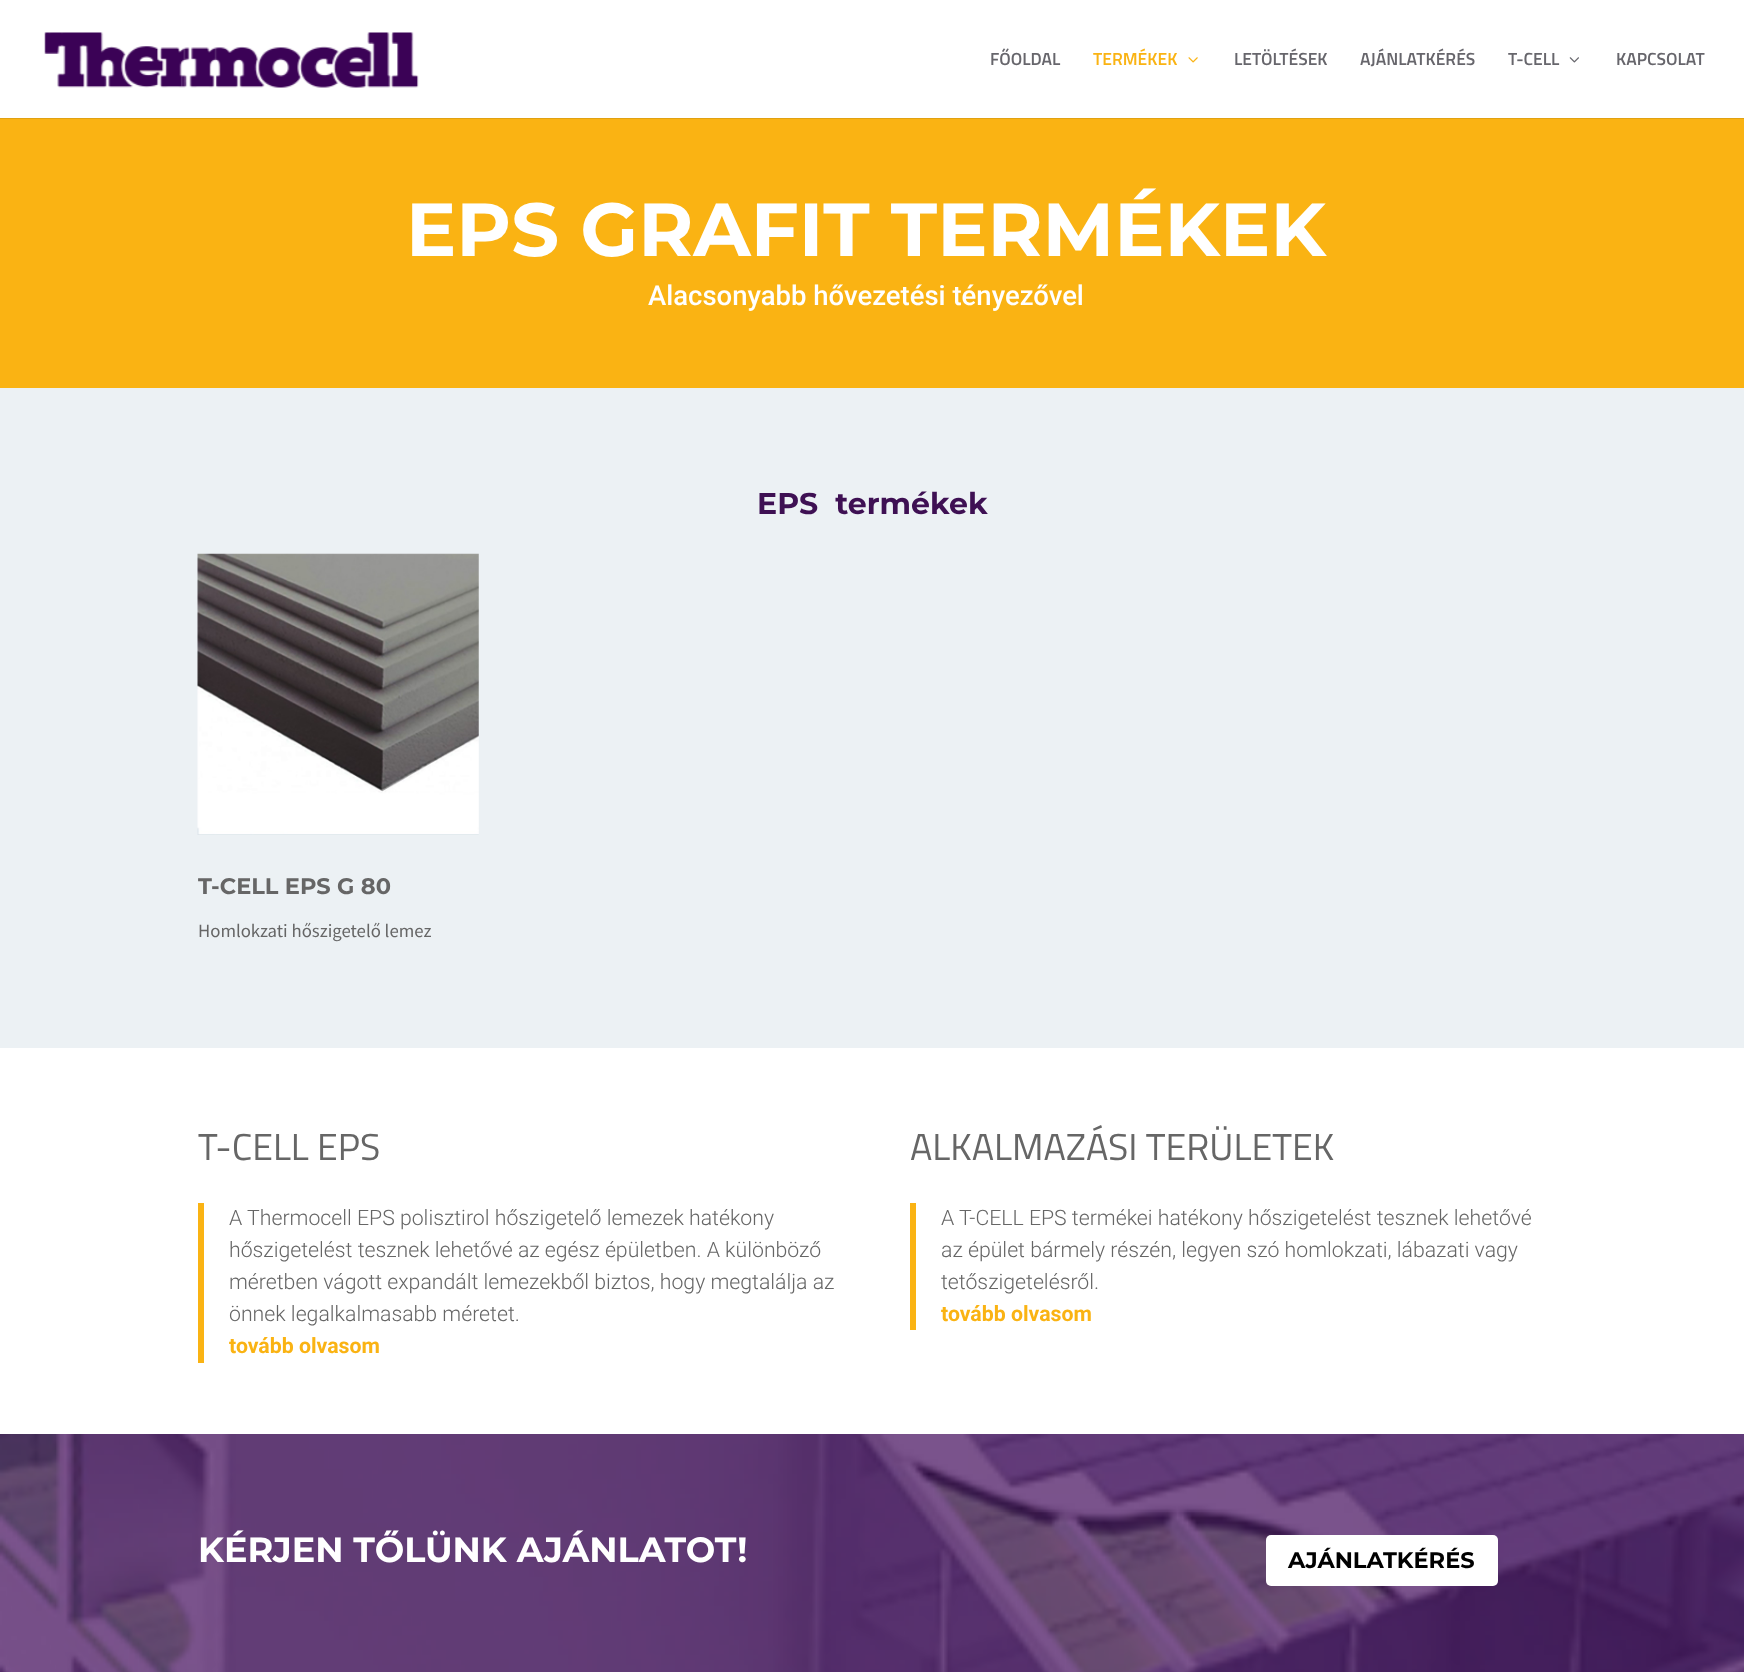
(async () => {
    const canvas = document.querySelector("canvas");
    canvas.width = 1744;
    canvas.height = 1672;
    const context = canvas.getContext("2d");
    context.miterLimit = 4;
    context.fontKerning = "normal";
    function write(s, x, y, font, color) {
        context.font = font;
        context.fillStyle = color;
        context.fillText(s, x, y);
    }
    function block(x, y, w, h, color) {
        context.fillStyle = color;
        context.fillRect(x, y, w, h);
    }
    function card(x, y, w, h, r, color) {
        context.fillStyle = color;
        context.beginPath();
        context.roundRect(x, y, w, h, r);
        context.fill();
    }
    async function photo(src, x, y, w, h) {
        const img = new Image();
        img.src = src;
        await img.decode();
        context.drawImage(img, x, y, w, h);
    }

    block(0, 0, 1744, 1672, "rgb(255, 255, 255)");
    block(0, 118, 1744, 1, "rgb(225, 161, 17)");
    await photo("media/1.png", 44, 32, 375, 56);
    write("FŐOLDAL", 990, 65, "600 17.5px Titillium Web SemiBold", "rgb(103, 102, 108)");
    write("TERMÉKEK", 1093, 65, "600 17.5px Titillium Web SemiBold", "rgb(250, 179, 19)");
    await photo("media/2.png", 1188, 57, 10, 6);
    write("LETÖLTÉSEK", 1234, 65, "600 17.5px Titillium Web SemiBold", "rgb(103, 102, 108)");
    write("AJÁNLATKÉRÉS", 1360, 65, "600 17.5px Titillium Web SemiBold", "rgb(103, 102, 108)");
    write("T-CELL", 1508, 65, "600 17.5px Titillium Web SemiBold", "rgb(103, 102, 108)");
    await photo("media/3.png", 1569, 57, 10, 6);
    write("KAPCSOLAT", 1616, 65, "600 17.5px Titillium Web SemiBold", "rgb(103, 102, 108)");
    block(0, 119, 1744, 269, "rgb(250, 179, 19)");
    write("EPS GRAFIT TERMÉKEK", 406, 256, "100 75px Montserrat", "rgb(255, 255, 255)");
    write("Alacsonyabb hővezetési tényezővel", 648, 305, "500 27.5px Roboto", "rgb(255, 255, 255)");
    block(0, 388, 1744, 660, "rgb(236, 241, 244)");
    write("EPS  termékek", 757, 514, "100 30px Montserrat", "rgb(62, 16, 83)");
    await photo("media/4.png", 197, 553, 282, 282);
    write("T-CELL EPS G 80", 198, 894, "100 22.5px Montserrat", "rgb(102, 102, 102)");
    write("Homlokzati hőszigetelő lemez", 198, 937, "18.75px Source Sans Pro", "rgb(102, 102, 102)");
    write("T-CELL EPS", 198, 1160, "37.5px Titillium Web", "rgb(102, 102, 102)");
    block(198, 1203, 6, 160, "rgb(250, 179, 19)");
    write("A Thermocell EPS polisztirol hőszigetelő lemezek hatékony", 229, 1225, "300 21.25px Roboto", "rgb(102, 102, 102)");
    write("hőszigetelést tesznek lehetővé az egész épületben. A különböző", 229, 1257, "300 21.25px Roboto", "rgb(102, 102, 102)");
    write("méretben vágott expandált lemezekből biztos, hogy megtalálja az", 229, 1289, "300 21.25px Roboto", "rgb(102, 102, 102)");
    write("önnek legalkalmasabb méretet.", 229, 1321, "300 21.25px Roboto", "rgb(102, 102, 102)");
    write("tovább olvasom", 229, 1353, "bold 21.25px Roboto", "rgb(250, 179, 19)");
    write("ALKALMAZÁSI TERÜLETEK", 910, 1160, "37.5px Titillium Web", "rgb(102, 102, 102)");
    block(910, 1203, 6, 127, "rgb(250, 179, 19)");
    write("A T-CELL EPS termékei hatékony hőszigetelést tesznek lehetővé", 941, 1225, "300 21.25px Roboto", "rgb(102, 102, 102)");
    write("az épület bármely részén, legyen szó homlokzati, lábazati vagy", 941, 1257, "300 21.25px Roboto", "rgb(102, 102, 102)");
    write("tetőszigetelésről.", 941, 1289, "300 21.25px Roboto", "rgb(102, 102, 102)");
    write("tovább olvasom", 941, 1321, "bold 21.25px Roboto", "rgb(250, 179, 19)");
    block(0, 1434, 1744, 238, "rgb(59, 2, 86)");
    await photo("media/5.png", 0, 1434, 1744, 238);
    write("KÉRJEN TŐLÜNK AJÁNLATOT!", 198, 1562, "100 35px Montserrat", "rgb(255, 255, 255)");
    card(1266, 1535, 232, 51, 5, "rgb(255, 255, 255)");
    write("AJÁNLATKÉRÉS", 1288, 1568, "100 22.5px Montserrat", "rgb(0, 0, 0)");
})();
